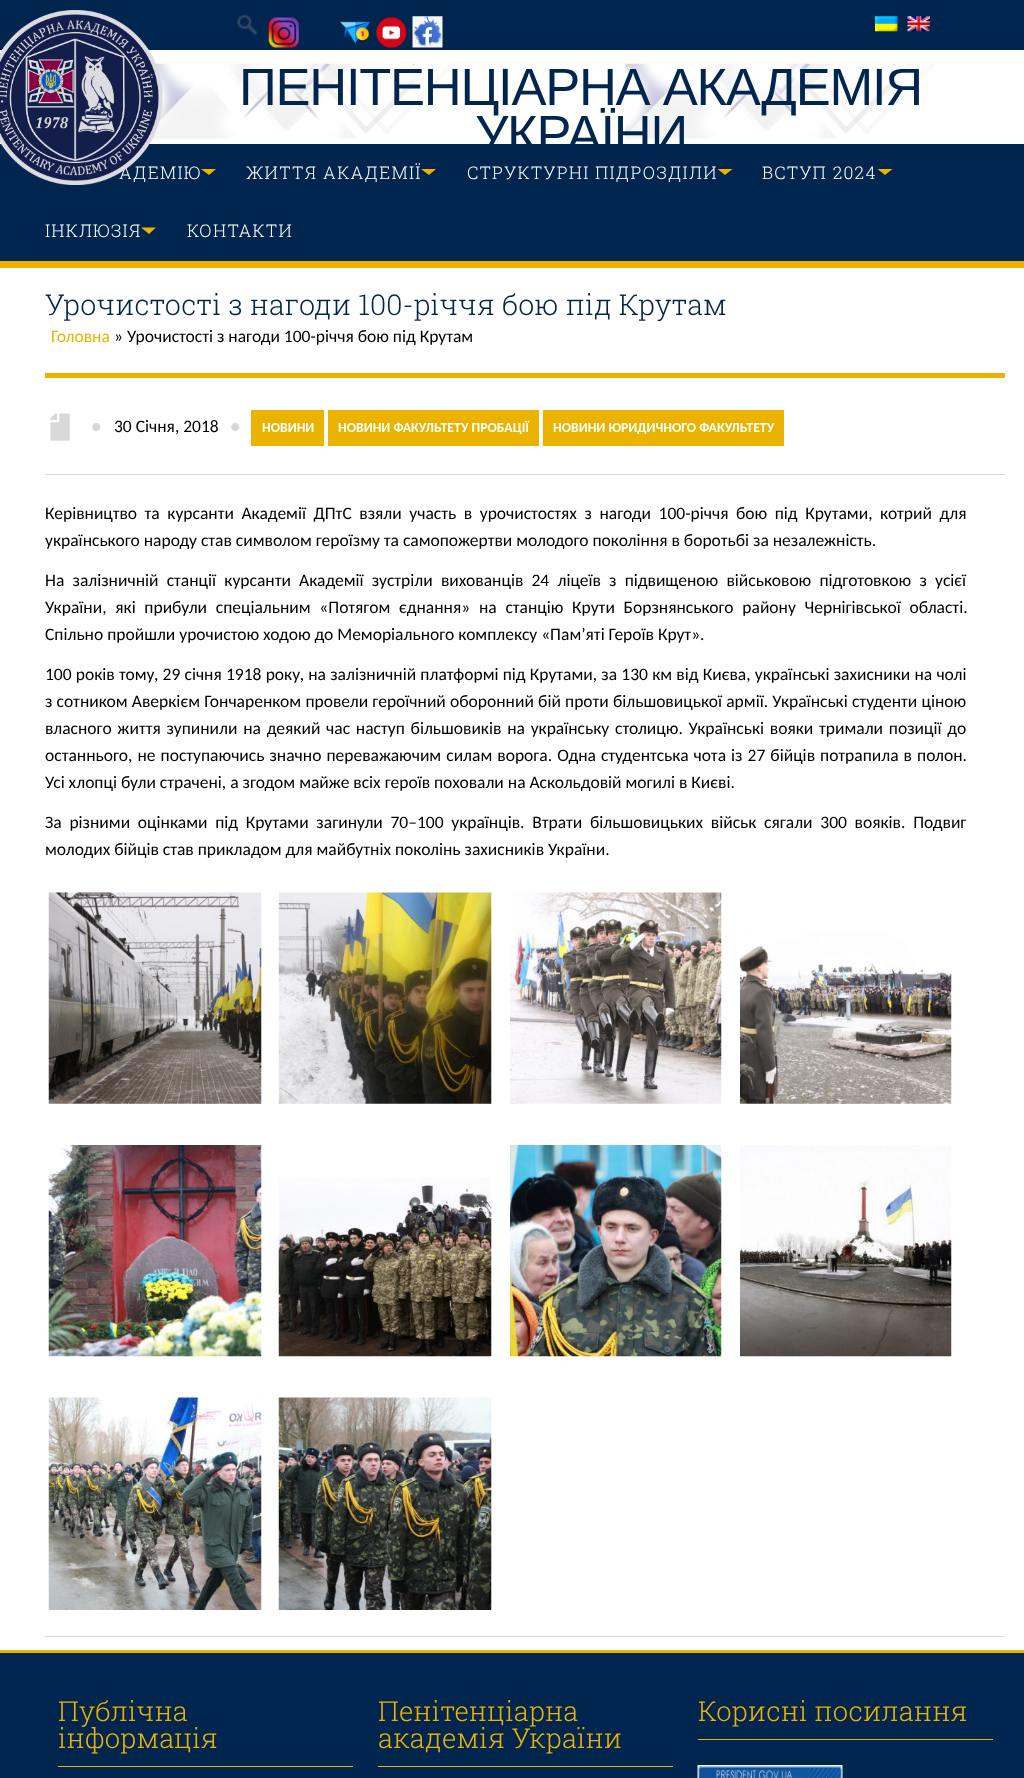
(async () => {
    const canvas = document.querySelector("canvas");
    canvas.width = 1024;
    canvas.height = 1778;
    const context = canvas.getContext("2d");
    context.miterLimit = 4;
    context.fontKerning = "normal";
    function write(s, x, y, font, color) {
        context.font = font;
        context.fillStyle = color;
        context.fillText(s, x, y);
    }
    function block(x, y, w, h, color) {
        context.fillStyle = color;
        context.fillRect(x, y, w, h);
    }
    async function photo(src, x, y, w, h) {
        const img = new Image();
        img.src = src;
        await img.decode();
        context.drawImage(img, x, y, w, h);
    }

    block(0, 0, 1024, 1778, "rgb(255, 255, 255)");
    block(0, 0, 1024, 50, "rgb(0, 37, 78)");
    await photo("media/1.png", 237, 15, 21, 20);
    await photo("media/2.png", 268, 17, 31, 31);
    await photo("media/3.png", 340, 21, 30, 22);
    await photo("media/4.png", 376, 17, 31, 31);
    await photo("media/5.png", 412, 16, 31, 32);
    await photo("media/6.png", 875, 16, 23, 16);
    await photo("media/7.png", 907, 16, 23, 16);
    await photo("media/8.png", 152, 63, 783, 76);
    block(0, 144, 1024, 117, "rgb(0, 37, 78)");
    context.letterSpacing = "1.25px";
    write("АДЕМІЮ", 119, 179, "300 17.5px Roboto Slab", "rgb(255, 255, 255)");
    await photo("media/9.png", 0, 10, 163, 175);
    context.letterSpacing = "-1.25px";
    write("ПЕНІТЕНЦІАРНА АКАДЕМІЯ", 239, 105, "52.5px Liberation Sans", "rgb(0, 37, 78)");
    write("УКРАЇНИ", 475, 152, "52.5px Liberation Sans", "rgb(0, 37, 78)");
    block(0, 261, 1024, 7, "rgb(236, 178, 0)");
    context.beginPath();
    context.moveTo(201, 169);
    context.lineTo(216, 169);
    context.lineTo(209, 175);
    context.closePath();
    context.fill();
    context.letterSpacing = "1.25px";
    write("ЖИТТЯ АКАДЕМІЇ", 246, 179, "300 17.5px Roboto Slab", "rgb(255, 255, 255)");
    context.fillStyle = "rgb(236, 178, 0)";
    context.beginPath();
    context.moveTo(421, 169);
    context.lineTo(436, 169);
    context.lineTo(429, 175);
    context.closePath();
    context.fill();
    write("СТРУКТУРНІ ПІДРОЗДІЛИ", 467, 179, "300 17.5px Roboto Slab", "rgb(255, 255, 255)");
    context.fillStyle = "rgb(236, 178, 0)";
    context.beginPath();
    context.moveTo(717.5, 169);
    context.lineTo(732.5, 169);
    context.lineTo(725, 175);
    context.closePath();
    context.fill();
    write("ВСТУП 2024", 762, 179, "300 17.5px Roboto Slab", "rgb(255, 255, 255)");
    context.fillStyle = "rgb(236, 178, 0)";
    context.beginPath();
    context.moveTo(877.5, 169);
    context.lineTo(892.5, 169);
    context.lineTo(885, 175);
    context.closePath();
    context.fill();
    write("ІНКЛЮЗІЯ", 45, 237, "300 17.5px Roboto Slab", "rgb(255, 255, 255)");
    context.fillStyle = "rgb(236, 178, 0)";
    context.beginPath();
    context.moveTo(141, 227.5);
    context.lineTo(156, 227.5);
    context.lineTo(149, 234);
    context.closePath();
    context.fill();
    write("КОНТАКТИ", 187, 237, "300 17.5px Roboto Slab", "rgb(255, 255, 255)");
    context.letterSpacing = "0px";
    write("Урочистості з нагоди 100-річчя бою під Крутам", 45, 315, "300 28.75px Roboto Slab", "rgb(0, 37, 78)");
    write("Головна", 51, 342, "17.5px Carlito", "rgb(236, 178, 0)");
    write("» Урочистості з нагоди 100-річчя бою під Крутам", 114, 342, "17.5px Carlito", "rgb(0, 0, 0)");
    block(45, 373, 960, 5, "rgb(236, 178, 0)");
    await photo("media/10.png", 50, 413, 20, 28);
    write("●", 91, 432, "17.5px Carlito", "rgb(215, 215, 215)");
    write("30 Січня, 2018", 114, 432, "17.5px Carlito", "rgb(0, 0, 0)");
    write("●", 230, 432, "17.5px Carlito", "rgb(215, 215, 215)");
    block(251, 410, 73, 36, "rgb(236, 178, 0)");
    write("НОВИНИ", 262, 432, "bold 13.75px Carlito", "rgb(255, 255, 255)");
    block(328, 410, 211, 36, "rgb(236, 178, 0)");
    write("НОВИНИ ФАКУЛЬТЕТУ ПРОБАЦІЇ", 338, 432, "bold 13.75px Carlito", "rgb(255, 255, 255)");
    block(543, 410, 241, 36, "rgb(236, 178, 0)");
    write("НОВИНИ ЮРИДИЧНОГО ФАКУЛЬТЕТУ", 553, 432, "bold 13.75px Carlito", "rgb(255, 255, 255)");
    block(45, 474, 960, 1, "rgb(217, 217, 217)");
    context.wordSpacing = "3.6px";
    write("Керівництво та курсанти Академії ДПтС взяли участь в урочистостях з нагоди 100-річчя бою під Крутами, котрий для", 45, 519, "17.5px Carlito", "rgb(0, 0, 0)");
    context.wordSpacing = "0px";
    write("українського народу став символом героїзму та самопожертви молодого покоління в боротьбі за незалежність.", 45, 546, "17.5px Carlito", "rgb(0, 0, 0)");
    context.wordSpacing = "4.25px";
    write("На залізничній станції курсанти Академії зустріли вихованців 24 ліцеїв з підвищеною військовою підготовкою з усієї", 45, 586, "17.5px Carlito", "rgb(0, 0, 0)");
    context.wordSpacing = "4.75px";
    write("України, які прибули спеціальним «Потягом єднання» на станцію Крути Борзнянського району Чернігівської області.", 45, 613, "17.5px Carlito", "rgb(0, 0, 0)");
    context.wordSpacing = "0px";
    write("Спільно пройшли урочистою ходою до Меморіального комплексу «Пам’яті Героїв Крут».", 45, 640, "17.5px Carlito", "rgb(0, 0, 0)");
    context.wordSpacing = "0.25px";
    write("100 років тому, 29 січня 1918 року, на залізничній платформі під Крутами, за 130 км від Києва, українські захисники на чолі", 45, 680, "17.5px Carlito", "rgb(0, 0, 0)");
    write("з сотником Аверкієм Гончаренком провели героїчний оборонний бій проти більшовицької армії. Українські студенти ціною", 45, 707, "17.5px Carlito", "rgb(0, 0, 0)");
    context.wordSpacing = "1.8px";
    write("власного життя зупинили на деякий час наступ більшовиків на українську столицю. Українські вояки тримали позиції до", 45, 734, "17.5px Carlito", "rgb(0, 0, 0)");
    context.wordSpacing = "1.1px";
    write("останнього, не поступаючись значно переважаючим силам ворога. Одна студентська чота із 27 бійців потрапила в полон.", 45, 761, "17.5px Carlito", "rgb(0, 0, 0)");
    context.wordSpacing = "0px";
    write("Усі хлопці були страчені, а згодом майже всіх героїв поховали на Аскольдовій могилі в Києві.", 45, 788, "17.5px Carlito", "rgb(0, 0, 0)");
    context.wordSpacing = "3.75px";
    write("За різними оцінками під Крутами загинули 70–100 українців. Втрати бiльшовицьких вiйськ сягали 300 воякiв. Подвиг", 45, 828, "17.5px Carlito", "rgb(0, 0, 0)");
    context.wordSpacing = "0px";
    write("молодих бійців став прикладом для майбутніх поколінь захисників України.", 45, 855, "17.5px Carlito", "rgb(0, 0, 0)");
    await photo("media/11.png", 48, 892, 214, 212);
    await photo("media/12.png", 278, 892, 214, 212);
    await photo("media/13.png", 510, 892, 212, 212);
    await photo("media/14.png", 740, 931, 212, 173);
    await photo("media/15.png", 48, 1145, 214, 212);
    await photo("media/16.png", 278, 1177, 214, 180);
    await photo("media/17.png", 510, 1145, 212, 212);
    await photo("media/18.png", 740, 1145, 212, 212);
    await photo("media/19.png", 48, 1397, 214, 213);
    await photo("media/20.png", 278, 1397, 214, 213);
    block(45, 1636, 960, 1, "rgb(217, 217, 217)");
    block(0, 1653, 1024, 125, "rgb(0, 37, 78)");
    block(0, 1650, 1024, 3, "rgb(236, 178, 0)");
    write("Публічна", 58, 1721, "300 27.5px Roboto Slab", "rgb(236, 178, 0)");
    write("інформація", 58, 1748, "300 27.5px Roboto Slab", "rgb(236, 178, 0)");
    block(58, 1766, 295, 1, "rgb(236, 178, 0)");
    write("Пенітенціарна", 378, 1721, "300 27.5px Roboto Slab", "rgb(236, 178, 0)");
    write("академія України", 378, 1748, "300 27.5px Roboto Slab", "rgb(236, 178, 0)");
    block(378, 1766, 295, 1, "rgb(236, 178, 0)");
    write("Корисні посилання", 698, 1721, "300 27.5px Roboto Slab", "rgb(236, 178, 0)");
    block(698, 1739, 295, 1, "rgb(236, 178, 0)");
    await photo("media/21.png", 697, 1765, 146, 13);
})();
